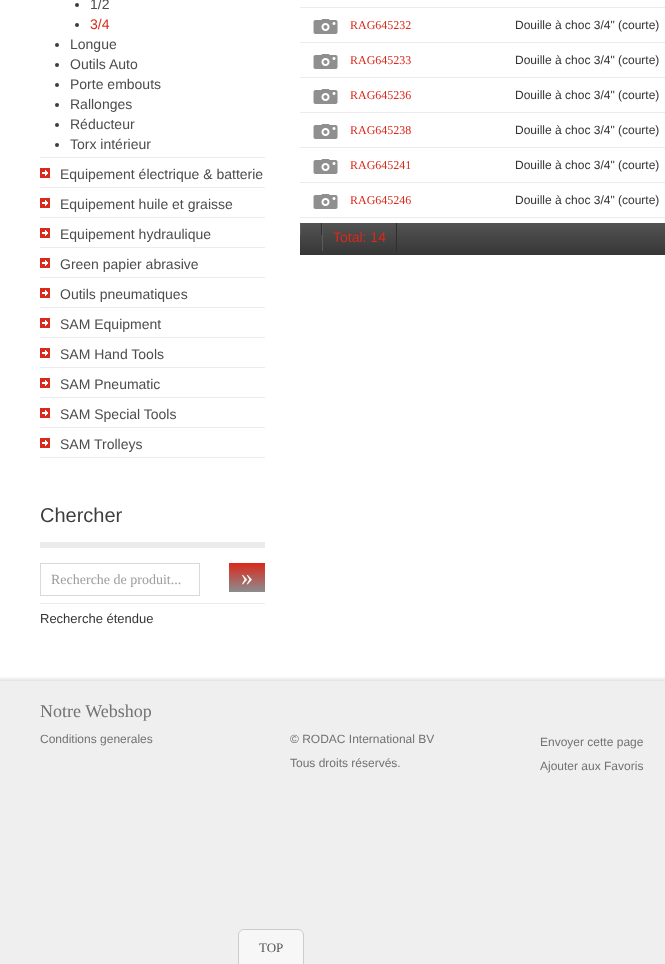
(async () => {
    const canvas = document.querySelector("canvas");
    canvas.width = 665;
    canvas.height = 964;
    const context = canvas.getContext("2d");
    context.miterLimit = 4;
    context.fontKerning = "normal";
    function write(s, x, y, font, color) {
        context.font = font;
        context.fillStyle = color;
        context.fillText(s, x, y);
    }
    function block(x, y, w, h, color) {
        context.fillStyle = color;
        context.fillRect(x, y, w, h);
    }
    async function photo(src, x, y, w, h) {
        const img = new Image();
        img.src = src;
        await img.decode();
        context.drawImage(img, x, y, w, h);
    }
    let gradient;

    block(0, 0, 665, 964, "rgb(239, 239, 239)");
    block(0, 0, 665, 681, "rgb(255, 255, 255)");
    await photo("media/1.png", 0, 677, 665, 4);
    block(40, 157, 225, 1, "rgb(235, 235, 235)");
    context.fillStyle = "rgb(61, 61, 61)";
    context.beginPath();
    context.arc(77, 5, 2, 0, Math.PI * 2);
    context.fill();
    write("1/2", 90, 9, "14px Liberation Sans", "rgb(76, 76, 76)");
    context.fillStyle = "rgb(61, 61, 61)";
    context.beginPath();
    context.arc(77, 25, 2, 0, Math.PI * 2);
    context.fill();
    write("3/4", 90, 29, "14px Liberation Sans", "rgb(218, 41, 28)");
    context.fillStyle = "rgb(61, 61, 61)";
    context.beginPath();
    context.arc(57, 45, 2, 0, Math.PI * 2);
    context.fill();
    write("Longue", 70, 49, "14px Liberation Sans", "rgb(76, 76, 76)");
    context.fillStyle = "rgb(61, 61, 61)";
    context.beginPath();
    context.arc(57, 65, 2, 0, Math.PI * 2);
    context.fill();
    write("Outils Auto", 70, 69, "14px Liberation Sans", "rgb(76, 76, 76)");
    context.fillStyle = "rgb(61, 61, 61)";
    context.beginPath();
    context.arc(57, 85, 2, 0, Math.PI * 2);
    context.fill();
    write("Porte embouts", 70, 89, "14px Liberation Sans", "rgb(76, 76, 76)");
    context.fillStyle = "rgb(61, 61, 61)";
    context.beginPath();
    context.arc(57, 105, 2, 0, Math.PI * 2);
    context.fill();
    write("Rallonges", 70, 109, "14px Liberation Sans", "rgb(76, 76, 76)");
    context.fillStyle = "rgb(61, 61, 61)";
    context.beginPath();
    context.arc(57, 125, 2, 0, Math.PI * 2);
    context.fill();
    write("Réducteur", 70, 129, "14px Liberation Sans", "rgb(76, 76, 76)");
    context.fillStyle = "rgb(61, 61, 61)";
    context.beginPath();
    context.arc(57, 145, 2, 0, Math.PI * 2);
    context.fill();
    write("Torx intérieur", 70, 149, "14px Liberation Sans", "rgb(76, 76, 76)");
    await photo("media/2.png", 40, 168, 10, 10);
    block(40, 187, 225, 1, "rgb(235, 235, 235)");
    write("Equipement électrique & batterie", 60, 179, "14px Liberation Sans", "rgb(76, 76, 76)");
    await photo("media/2.png", 40, 198, 10, 10);
    block(40, 217, 225, 1, "rgb(235, 235, 235)");
    write("Equipement huile et graisse", 60, 209, "14px Liberation Sans", "rgb(76, 76, 76)");
    await photo("media/2.png", 40, 228, 10, 10);
    block(40, 247, 225, 1, "rgb(235, 235, 235)");
    write("Equipement hydraulique", 60, 239, "14px Liberation Sans", "rgb(76, 76, 76)");
    await photo("media/2.png", 40, 258, 10, 10);
    block(40, 277, 225, 1, "rgb(235, 235, 235)");
    write("Green papier abrasive", 60, 269, "14px Liberation Sans", "rgb(76, 76, 76)");
    await photo("media/2.png", 40, 288, 10, 10);
    block(40, 307, 225, 1, "rgb(235, 235, 235)");
    write("Outils pneumatiques", 60, 299, "14px Liberation Sans", "rgb(76, 76, 76)");
    await photo("media/2.png", 40, 318, 10, 10);
    block(40, 337, 225, 1, "rgb(235, 235, 235)");
    write("SAM Equipment", 60, 329, "14px Liberation Sans", "rgb(76, 76, 76)");
    await photo("media/2.png", 40, 348, 10, 10);
    block(40, 367, 225, 1, "rgb(235, 235, 235)");
    write("SAM Hand Tools", 60, 359, "14px Liberation Sans", "rgb(76, 76, 76)");
    await photo("media/2.png", 40, 378, 10, 10);
    block(40, 397, 225, 1, "rgb(235, 235, 235)");
    write("SAM Pneumatic", 60, 389, "14px Liberation Sans", "rgb(76, 76, 76)");
    await photo("media/2.png", 40, 408, 10, 10);
    block(40, 427, 225, 1, "rgb(235, 235, 235)");
    write("SAM Special Tools", 60, 419, "14px Liberation Sans", "rgb(76, 76, 76)");
    await photo("media/2.png", 40, 438, 10, 10);
    block(40, 457, 225, 1, "rgb(235, 235, 235)");
    write("SAM Trolleys", 60, 449, "14px Liberation Sans", "rgb(76, 76, 76)");
    block(40, 542, 225, 6, "rgb(235, 235, 235)");
    write("Chercher", 40, 522, "20px Liberation Sans", "rgb(61, 61, 61)");
    context.strokeStyle = "rgb(217, 217, 217)";
    context.strokeRect(40.5, 563.5, 159, 32);
    write("Recherche de produit...", 51, 584, "14px Liberation Serif", "rgb(157, 157, 157)");
    gradient = context.createLinearGradient(247, 563, 247, 592);
    gradient.addColorStop(0, "rgb(218, 41, 28)");
    gradient.addColorStop(1, "rgb(138, 141, 143)");
    context.fillStyle = gradient;
    context.fillRect(229, 563, 36, 29);
    write("»", 241, 585, "24px Liberation Serif", "rgb(255, 255, 255)");
    block(40, 603, 225, 1, "rgb(235, 235, 235)");
    write("Recherche étendue", 40, 623, "13px Liberation Sans", "rgb(52, 52, 52)");
    block(300, 7, 365, 1, "rgb(235, 235, 235)");
    await photo("media/3.png", 313, 19, 25, 15);
    write("RAG645232", 350, 29, "12px Liberation Serif", "rgb(218, 41, 28)");
    block(300, 42, 365, 1, "rgb(235, 235, 235)");
    write("Douille à choc 3/4\" (courte)", 515, 29, "12px Liberation Sans", "rgb(52, 52, 52)");
    await photo("media/3.png", 313, 54, 25, 15);
    write("RAG645233", 350, 64, "12px Liberation Serif", "rgb(218, 41, 28)");
    block(300, 77, 365, 1, "rgb(235, 235, 235)");
    write("Douille à choc 3/4\" (courte)", 515, 64, "12px Liberation Sans", "rgb(52, 52, 52)");
    await photo("media/3.png", 313, 89, 25, 15);
    write("RAG645236", 350, 99, "12px Liberation Serif", "rgb(218, 41, 28)");
    block(300, 112, 365, 1, "rgb(235, 235, 235)");
    write("Douille à choc 3/4\" (courte)", 515, 99, "12px Liberation Sans", "rgb(52, 52, 52)");
    await photo("media/3.png", 313, 124, 25, 15);
    write("RAG645238", 350, 134, "12px Liberation Serif", "rgb(218, 41, 28)");
    block(300, 147, 365, 1, "rgb(235, 235, 235)");
    write("Douille à choc 3/4\" (courte)", 515, 134, "12px Liberation Sans", "rgb(52, 52, 52)");
    await photo("media/3.png", 313, 159, 25, 15);
    write("RAG645241", 350, 169, "12px Liberation Serif", "rgb(218, 41, 28)");
    block(300, 182, 365, 1, "rgb(235, 235, 235)");
    write("Douille à choc 3/4\" (courte)", 515, 169, "12px Liberation Sans", "rgb(52, 52, 52)");
    await photo("media/3.png", 313, 194, 25, 15);
    write("RAG645246", 350, 204, "12px Liberation Serif", "rgb(218, 41, 28)");
    block(300, 217, 365, 1, "rgb(235, 235, 235)");
    write("Douille à choc 3/4\" (courte)", 515, 204, "12px Liberation Sans", "rgb(52, 52, 52)");
    gradient = context.createLinearGradient(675, 223, 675, 255);
    gradient.addColorStop(0, "rgb(83, 83, 83)");
    gradient.addColorStop(1, "rgb(54, 54, 54)");
    context.fillStyle = gradient;
    context.fillRect(300, 223, 365, 32);
    block(321, 223, 1, 12, "rgb(46, 46, 46)");
    block(300, 223, 1, 12, "rgb(90, 90, 90)");
    block(396, 223, 1, 28, "rgb(46, 46, 46)");
    block(322, 223, 1, 28, "rgb(90, 90, 90)");
    write("Total: 14", 333, 242, "14px Liberation Sans", "rgb(218, 41, 28)");
    write("Notre Webshop", 40, 717, "18px Liberation Serif", "rgb(114, 114, 114)");
    write("Conditions generales", 40, 743, "12px Liberation Sans", "rgb(114, 114, 114)");
    write("© RODAC International BV", 290, 743, "12px Liberation Sans", "rgb(114, 114, 114)");
    write("Tous droits réservés.", 290, 767, "12px Liberation Sans", "rgb(114, 114, 114)");
    write("Envoyer cette page", 540, 746, "12px Liberation Sans", "rgb(114, 114, 114)");
    write("Ajouter aux Favoris", 540, 770, "12px Liberation Sans", "rgb(114, 114, 114)");
    context.fillStyle = "rgb(247, 247, 247)";
    context.beginPath();
    context.roundRect(238.5, 929.5, 65, 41, 5.5);
    context.fill();
    context.strokeStyle = "rgb(204, 204, 204)";
    context.stroke();
    write("TOP", 259, 952, "13px Liberation Serif", "rgb(85, 85, 85)");
})();
